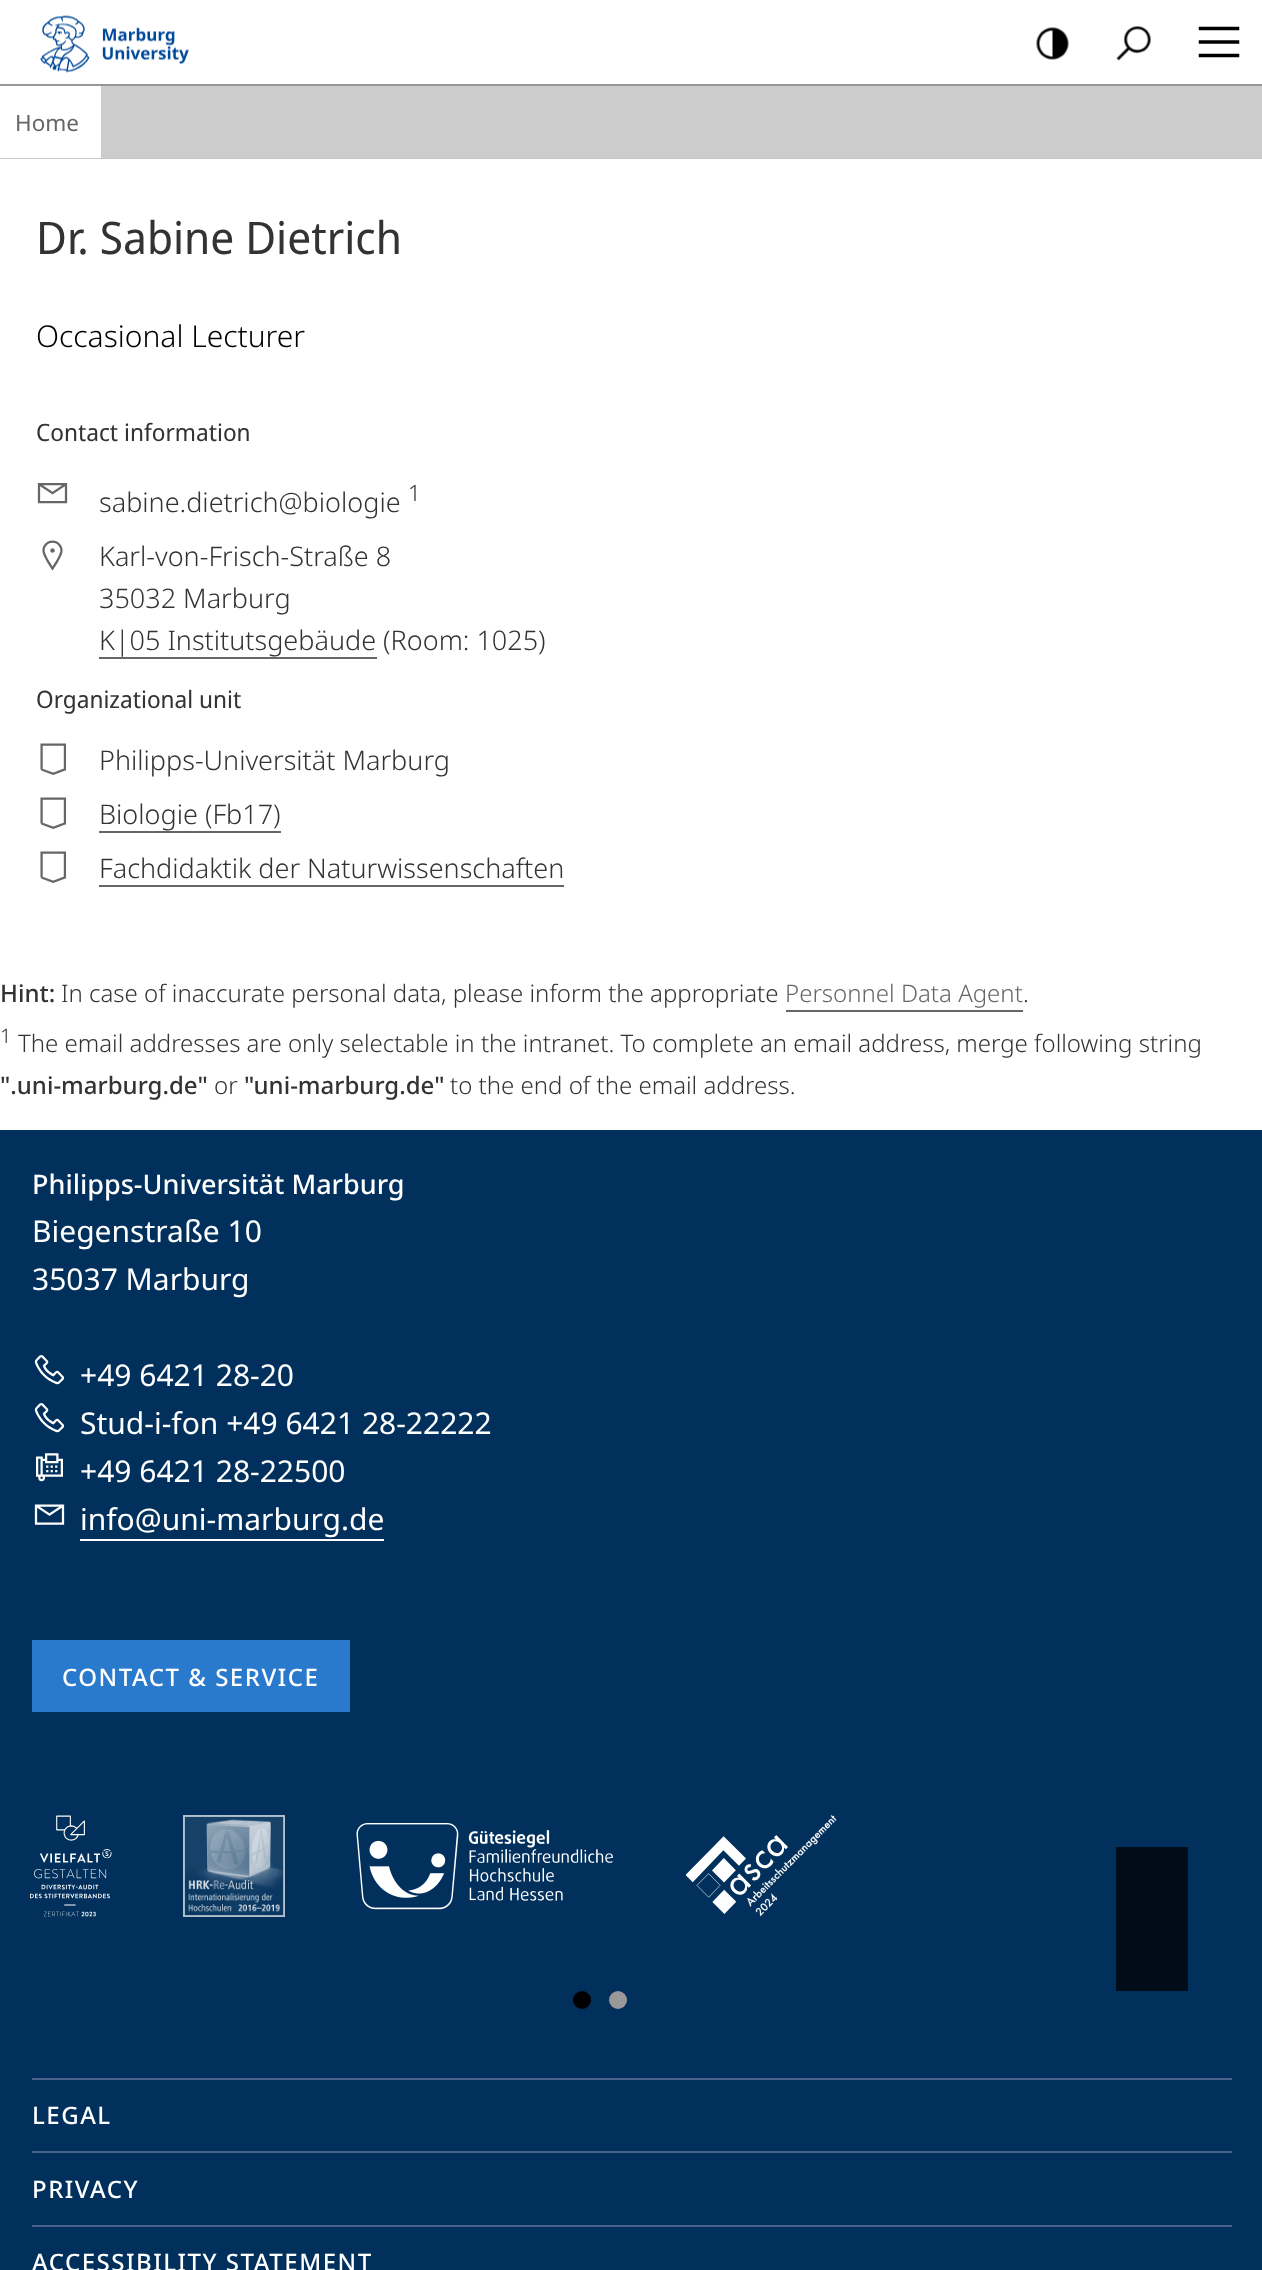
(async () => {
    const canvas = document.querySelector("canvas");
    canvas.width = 1262;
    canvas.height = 2270;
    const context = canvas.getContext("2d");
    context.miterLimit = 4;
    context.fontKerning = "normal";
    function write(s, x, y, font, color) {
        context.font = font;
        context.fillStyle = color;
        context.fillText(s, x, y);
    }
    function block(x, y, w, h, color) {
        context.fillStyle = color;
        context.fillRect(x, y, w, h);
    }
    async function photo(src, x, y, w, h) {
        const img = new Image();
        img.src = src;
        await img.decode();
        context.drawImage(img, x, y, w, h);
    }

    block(0, 0, 1262, 2270, "rgb(255, 255, 255)");
    await photo("media/1.png", 40, 15, 149, 58);
    await photo("media/2.png", 1036, 27, 33, 33);
    await photo("media/3.png", 1116, 26, 35, 35);
    await photo("media/4.png", 1198, 26, 42, 32);
    block(101, 86, 1161, 72, "rgb(204, 204, 204)");
    block(0, 84, 1262, 2, "rgb(152, 152, 152)");
    block(0, 158, 1262, 1, "rgb(199, 199, 199)");
    write("Home", 15, 131, "22.5px Noto Sans", "rgb(102, 102, 102)");
    write("Dr. Sabine Dietrich", 36, 254, "45px Noto Sans Display", "rgb(51, 51, 51)");
    write("Occasional Lecturer", 36, 347, "300 30px Noto Sans", "rgb(0, 0, 0)");
    write("Contact information", 36, 441, "24px Noto Sans Display", "rgb(51, 51, 51)");
    await photo("media/5.png", 37, 483, 31, 21);
    write("sabine.dietrich@biologie", 99, 512, "300 27px Noto Sans", "rgb(51, 51, 51)");
    write("1", 408, 501, "300 22.5px Noto Sans", "rgb(51, 51, 51)");
    await photo("media/6.png", 42, 540, 21, 31);
    write("Karl-von-Frisch-Straße 8", 99, 566, "300 27px Noto Sans", "rgb(51, 51, 51)");
    write("35032 Marburg", 99, 608, "300 27px Noto Sans", "rgb(51, 51, 51)");
    write("K|05 Institutsgebäude (Room: 1025)", 99, 650, "300 27px Noto Sans", "rgb(51, 51, 51)");
    block(99, 657, 278, 2, "rgb(102, 102, 102)");
    write("Organizational unit", 36, 708, "24px Noto Sans Display", "rgb(51, 51, 51)");
    await photo("media/7.png", 40, 743, 27, 32);
    write("Philipps-Universität Marburg", 99, 770, "300 27px Noto Sans", "rgb(51, 51, 51)");
    await photo("media/8.png", 40, 797, 27, 32);
    write("Biologie (Fb17)", 99, 824, "300 27px Noto Sans", "rgb(51, 51, 51)");
    block(99, 831, 182, 2, "rgb(102, 102, 102)");
    await photo("media/8.png", 40, 851, 27, 32);
    write("Fachdidaktik der Naturwissenschaften", 99, 878, "300 27px Noto Sans", "rgb(51, 51, 51)");
    block(99, 885, 465, 2, "rgb(102, 102, 102)");
    write("Hint:", 0, 1002, "500 24px Noto Sans", "rgb(51, 51, 51)");
    write("In case of inaccurate personal data, please inform the appropriate", 61, 1002, "300 24px Noto Sans", "rgb(51, 51, 51)");
    write("Personnel Data Agent", 785, 1002, "300 24px Noto Sans", "rgb(102, 102, 102)");
    write(".", 1023, 1002, "300 24px Noto Sans", "rgb(51, 51, 51)");
    block(786, 1010, 237, 2, "rgb(102, 102, 102)");
    write("1", 0, 1043, "300 20px Noto Sans", "rgb(51, 51, 51)");
    write("The email addresses are only selectable in the intranet. To complete an email address, merge following string", 18, 1052, "300 24px Noto Sans", "rgb(51, 51, 51)");
    write("\".uni-marburg.de\"", 0, 1094, "500 24px Noto Sans", "rgb(51, 51, 51)");
    write("or", 214, 1094, "300 24px Noto Sans", "rgb(51, 51, 51)");
    write("\"uni-marburg.de\"", 244, 1094, "500 24px Noto Sans", "rgb(51, 51, 51)");
    write("to the end of the email address.", 450, 1094, "300 24px Noto Sans", "rgb(51, 51, 51)");
    block(0, 1130, 1262, 1140, "rgb(0, 48, 91)");
    write("Philipps-Universität Marburg", 32, 1194, "500 27px Noto Sans", "rgb(255, 255, 255)");
    write("Biegenstraße 10", 32, 1242, "30px Noto Sans", "rgb(255, 255, 255)");
    write("35037 Marburg", 32, 1290, "30px Noto Sans", "rgb(255, 255, 255)");
    await photo("media/9.png", 34, 1355, 31, 30);
    write("+49 6421 28-20", 80, 1386, "30px Noto Sans", "rgb(255, 255, 255)");
    await photo("media/9.png", 34, 1403, 31, 30);
    write("Stud-i-fon +49 6421 28-22222", 80, 1434, "30px Noto Sans", "rgb(255, 255, 255)");
    await photo("media/10.png", 36, 1453, 27, 29);
    write("+49 6421 28-22500", 80, 1482, "30px Noto Sans", "rgb(255, 255, 255)");
    await photo("media/11.png", 34, 1504, 31, 21);
    write("info@uni-marburg.de", 80, 1530, "30px Noto Sans", "rgb(255, 255, 255)");
    block(80, 1539, 304, 2, "rgb(255, 255, 255)");
    block(32, 1640, 318, 72, "rgb(41, 122, 204)");
    context.letterSpacing = "1.5px";
    write("CONTACT & SERVICE", 62, 1686, "500 24px Noto Sans", "rgb(255, 255, 255)");
    await photo("media/12.png", 30, 1815, 82, 102);
    await photo("media/13.png", 183, 1815, 102, 102);
    await photo("media/14.png", 356, 1823, 257, 87);
    await photo("media/15.png", 686, 1815, 151, 102);
    block(1116, 1847, 72, 144, "rgb(0, 12, 23)");
    context.fillStyle = "rgb(0, 0, 0)";
    context.beginPath();
    context.arc(582, 2000, 9, 0, Math.PI * 2);
    context.fill();
    context.fillStyle = "rgb(153, 153, 153)";
    context.beginPath();
    context.arc(618, 2000, 9, 0, Math.PI * 2);
    context.fill();
    block(32, 2078, 1200, 2, "rgb(77, 98, 139)");
    block(32, 2151, 1200, 2, "rgb(77, 98, 139)");
    write("LEGAL", 32, 2124, "500 24px Noto Sans", "rgb(255, 255, 255)");
    block(32, 2225, 1200, 2, "rgb(77, 98, 139)");
    write("PRIVACY", 32, 2198, "500 24px Noto Sans", "rgb(255, 255, 255)");
    write("ACCESSIBILITY STATEMENT", 32, 2271, "500 24px Noto Sans", "rgb(255, 255, 255)");
})();
